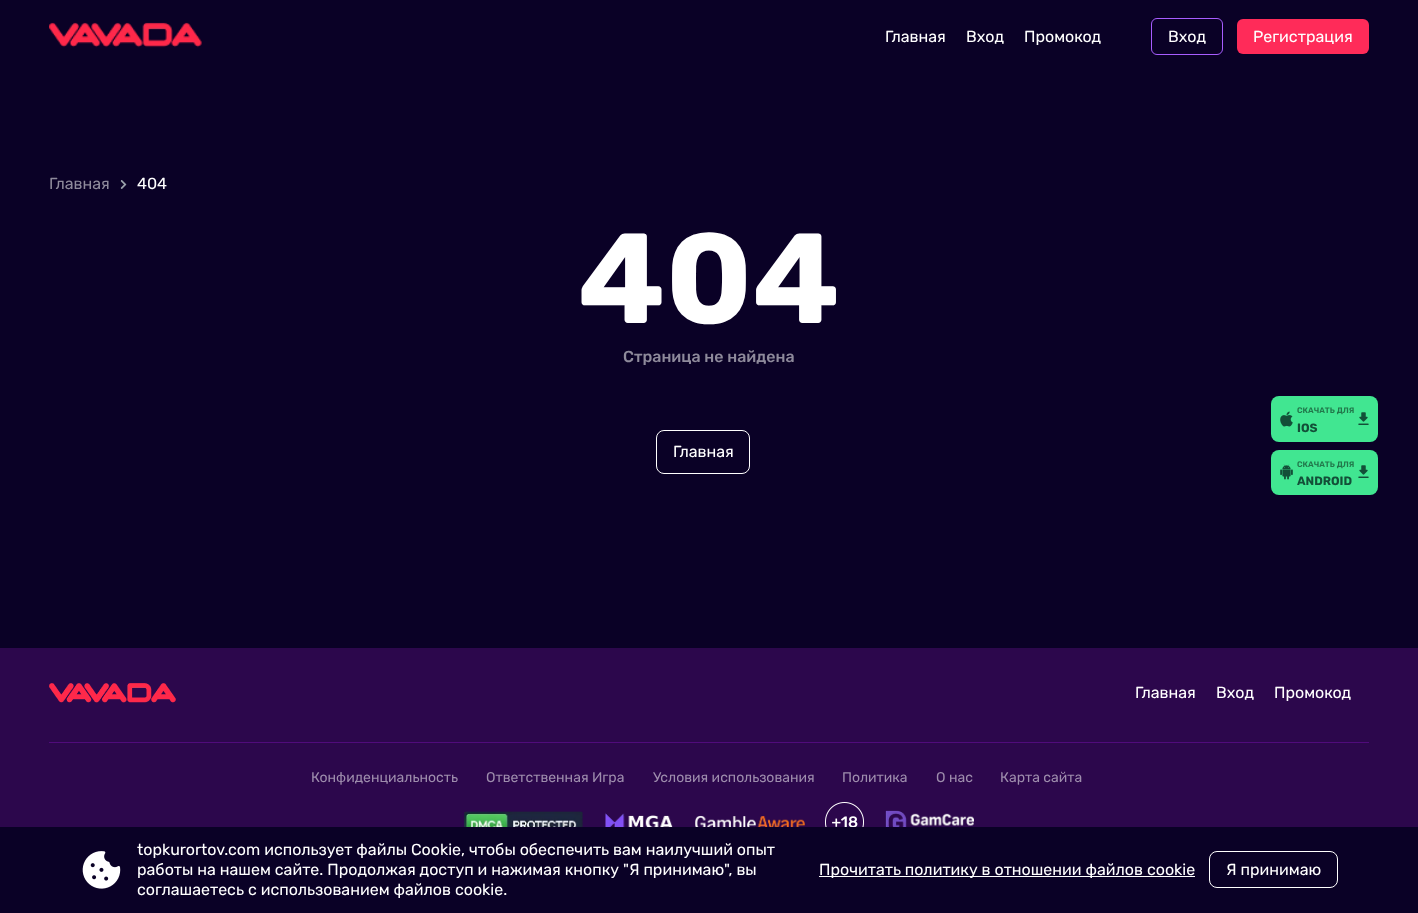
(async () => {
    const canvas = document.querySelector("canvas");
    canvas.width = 1418;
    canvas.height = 913;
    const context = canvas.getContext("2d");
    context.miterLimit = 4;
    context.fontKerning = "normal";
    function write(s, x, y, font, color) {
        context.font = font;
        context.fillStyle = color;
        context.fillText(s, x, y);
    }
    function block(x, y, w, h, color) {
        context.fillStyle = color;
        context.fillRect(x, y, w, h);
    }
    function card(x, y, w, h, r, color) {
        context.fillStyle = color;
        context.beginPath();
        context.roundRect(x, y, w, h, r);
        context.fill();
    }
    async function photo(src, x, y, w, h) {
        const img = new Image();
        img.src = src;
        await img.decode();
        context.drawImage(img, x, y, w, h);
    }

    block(0, 0, 1418, 913, "rgb(10, 1, 38)");
    await photo("media/1.png", 49, 22, 153, 26);
    write("Главная", 885, 42, "16px Rubik", "rgb(255, 255, 255)");
    write("Вход", 966, 42, "16px Rubik", "rgb(255, 255, 255)");
    write("Промокод", 1024, 42, "16px Rubik", "rgb(255, 255, 255)");
    context.beginPath();
    context.roundRect(1151.5, 18.5, 71, 36, 5.5);
    context.strokeStyle = "rgb(168, 93, 255)";
    context.stroke();
    write("Вход", 1168, 42, "16px Rubik", "rgb(255, 255, 255)");
    card(1237, 19, 132, 35, 6, "rgb(255, 43, 89)");
    write("Регистрация", 1253, 42, "16px Rubik", "rgb(255, 255, 255)");
    write("Главная", 49, 189, "16px Rubik", "rgb(142, 138, 155)");
    await photo("media/2.png", 120, 180, 7, 9);
    write("404", 137, 189, "16px Rubik", "rgb(255, 255, 255)");
    write("404", 578, 323, "bold 128px Rubik", "rgb(255, 255, 255)");
    write("Страница не найдена", 623, 362, "500 16px Rubik", "rgb(142, 138, 155)");
    context.beginPath();
    context.roundRect(656.5, 430.5, 93, 43, 7.5);
    context.strokeStyle = "rgb(255, 255, 255)";
    context.stroke();
    write("Главная", 673, 457, "16px Rubik", "rgb(255, 255, 255)");
    block(0, 648, 1418, 179, "rgb(44, 7, 76)");
    block(49, 742, 1320, 1, "rgb(80, 11, 123)");
    await photo("media/3.png", 49, 683, 127, 20);
    write("Главная", 1135, 698, "16px Rubik", "rgb(255, 255, 255)");
    write("Вход", 1216, 698, "16px Rubik", "rgb(255, 255, 255)");
    write("Промокод", 1274, 698, "16px Rubik", "rgb(255, 255, 255)");
    write("Конфиденциальность", 311, 782, "14px Rubik", "rgb(158, 141, 173)");
    write("Ответственная Игра", 486, 782, "14px Rubik", "rgb(158, 141, 173)");
    write("Условия использования", 653, 782, "14px Rubik", "rgb(158, 141, 173)");
    write("Политика", 842, 782, "14px Rubik", "rgb(158, 141, 173)");
    write("О нас", 936, 782, "14px Rubik", "rgb(158, 141, 173)");
    write("Карта сайта", 1000, 782, "14px Rubik", "rgb(158, 141, 173)");
    await photo("media/4.png", 464, 811, 119, 16);
    await photo("media/5.png", 605, 813, 68, 14);
    await photo("media/6.png", 695, 815, 110, 12);
    await photo("media/7.png", 825, 802, 39, 25);
    await photo("media/8.png", 885, 810, 89, 17);
    card(1271, 396, 107, 46, 8, "rgb(65, 230, 145)");
    await photo("media/9.png", 1280, 411, 13, 16);
    write("СКАЧАТЬ ДЛЯ", 1297, 413, "600 8px Rubik", "rgb(34, 120, 75)");
    write("IOS", 1297, 432, "bold 12px Rubik", "rgb(19, 79, 56)");
    await photo("media/10.png", 1358, 412, 11, 13);
    card(1271, 450, 107, 45, 8, "rgb(65, 230, 145)");
    await photo("media/11.png", 1280, 464, 13, 16);
    write("СКАЧАТЬ ДЛЯ", 1297, 467, "600 8px Rubik", "rgb(34, 120, 75)");
    write("ANDROID", 1297, 485, "bold 12px Rubik", "rgb(19, 79, 56)");
    await photo("media/10.png", 1358, 465, 11, 13);
    await photo("media/12.png", 82, 851, 39, 38);
    write("topkurortov.com использует файлы Cookie, чтобы обеспечить вам наилучший опыт", 137, 855, "16px Rubik", "rgb(255, 255, 255)");
    write("работы на нашем сайте. Продолжая доступ и нажимая кнопку \"Я принимаю\", вы", 137, 875, "16px Rubik", "rgb(255, 255, 255)");
    write("соглашаетесь с использованием файлов cookie.", 137, 895, "16px Rubik", "rgb(255, 255, 255)");
    block(819, 876, 376, 1, "rgb(255, 255, 255)");
    write("Прочитать политику в отношении файлов cookie", 819, 875, "16px Rubik", "rgb(255, 255, 255)");
    context.beginPath();
    context.roundRect(1209.5, 851.5, 128, 36, 7.5);
    context.stroke();
    write("Я принимаю", 1226, 875, "16px Rubik", "rgb(255, 255, 255)");
})();
